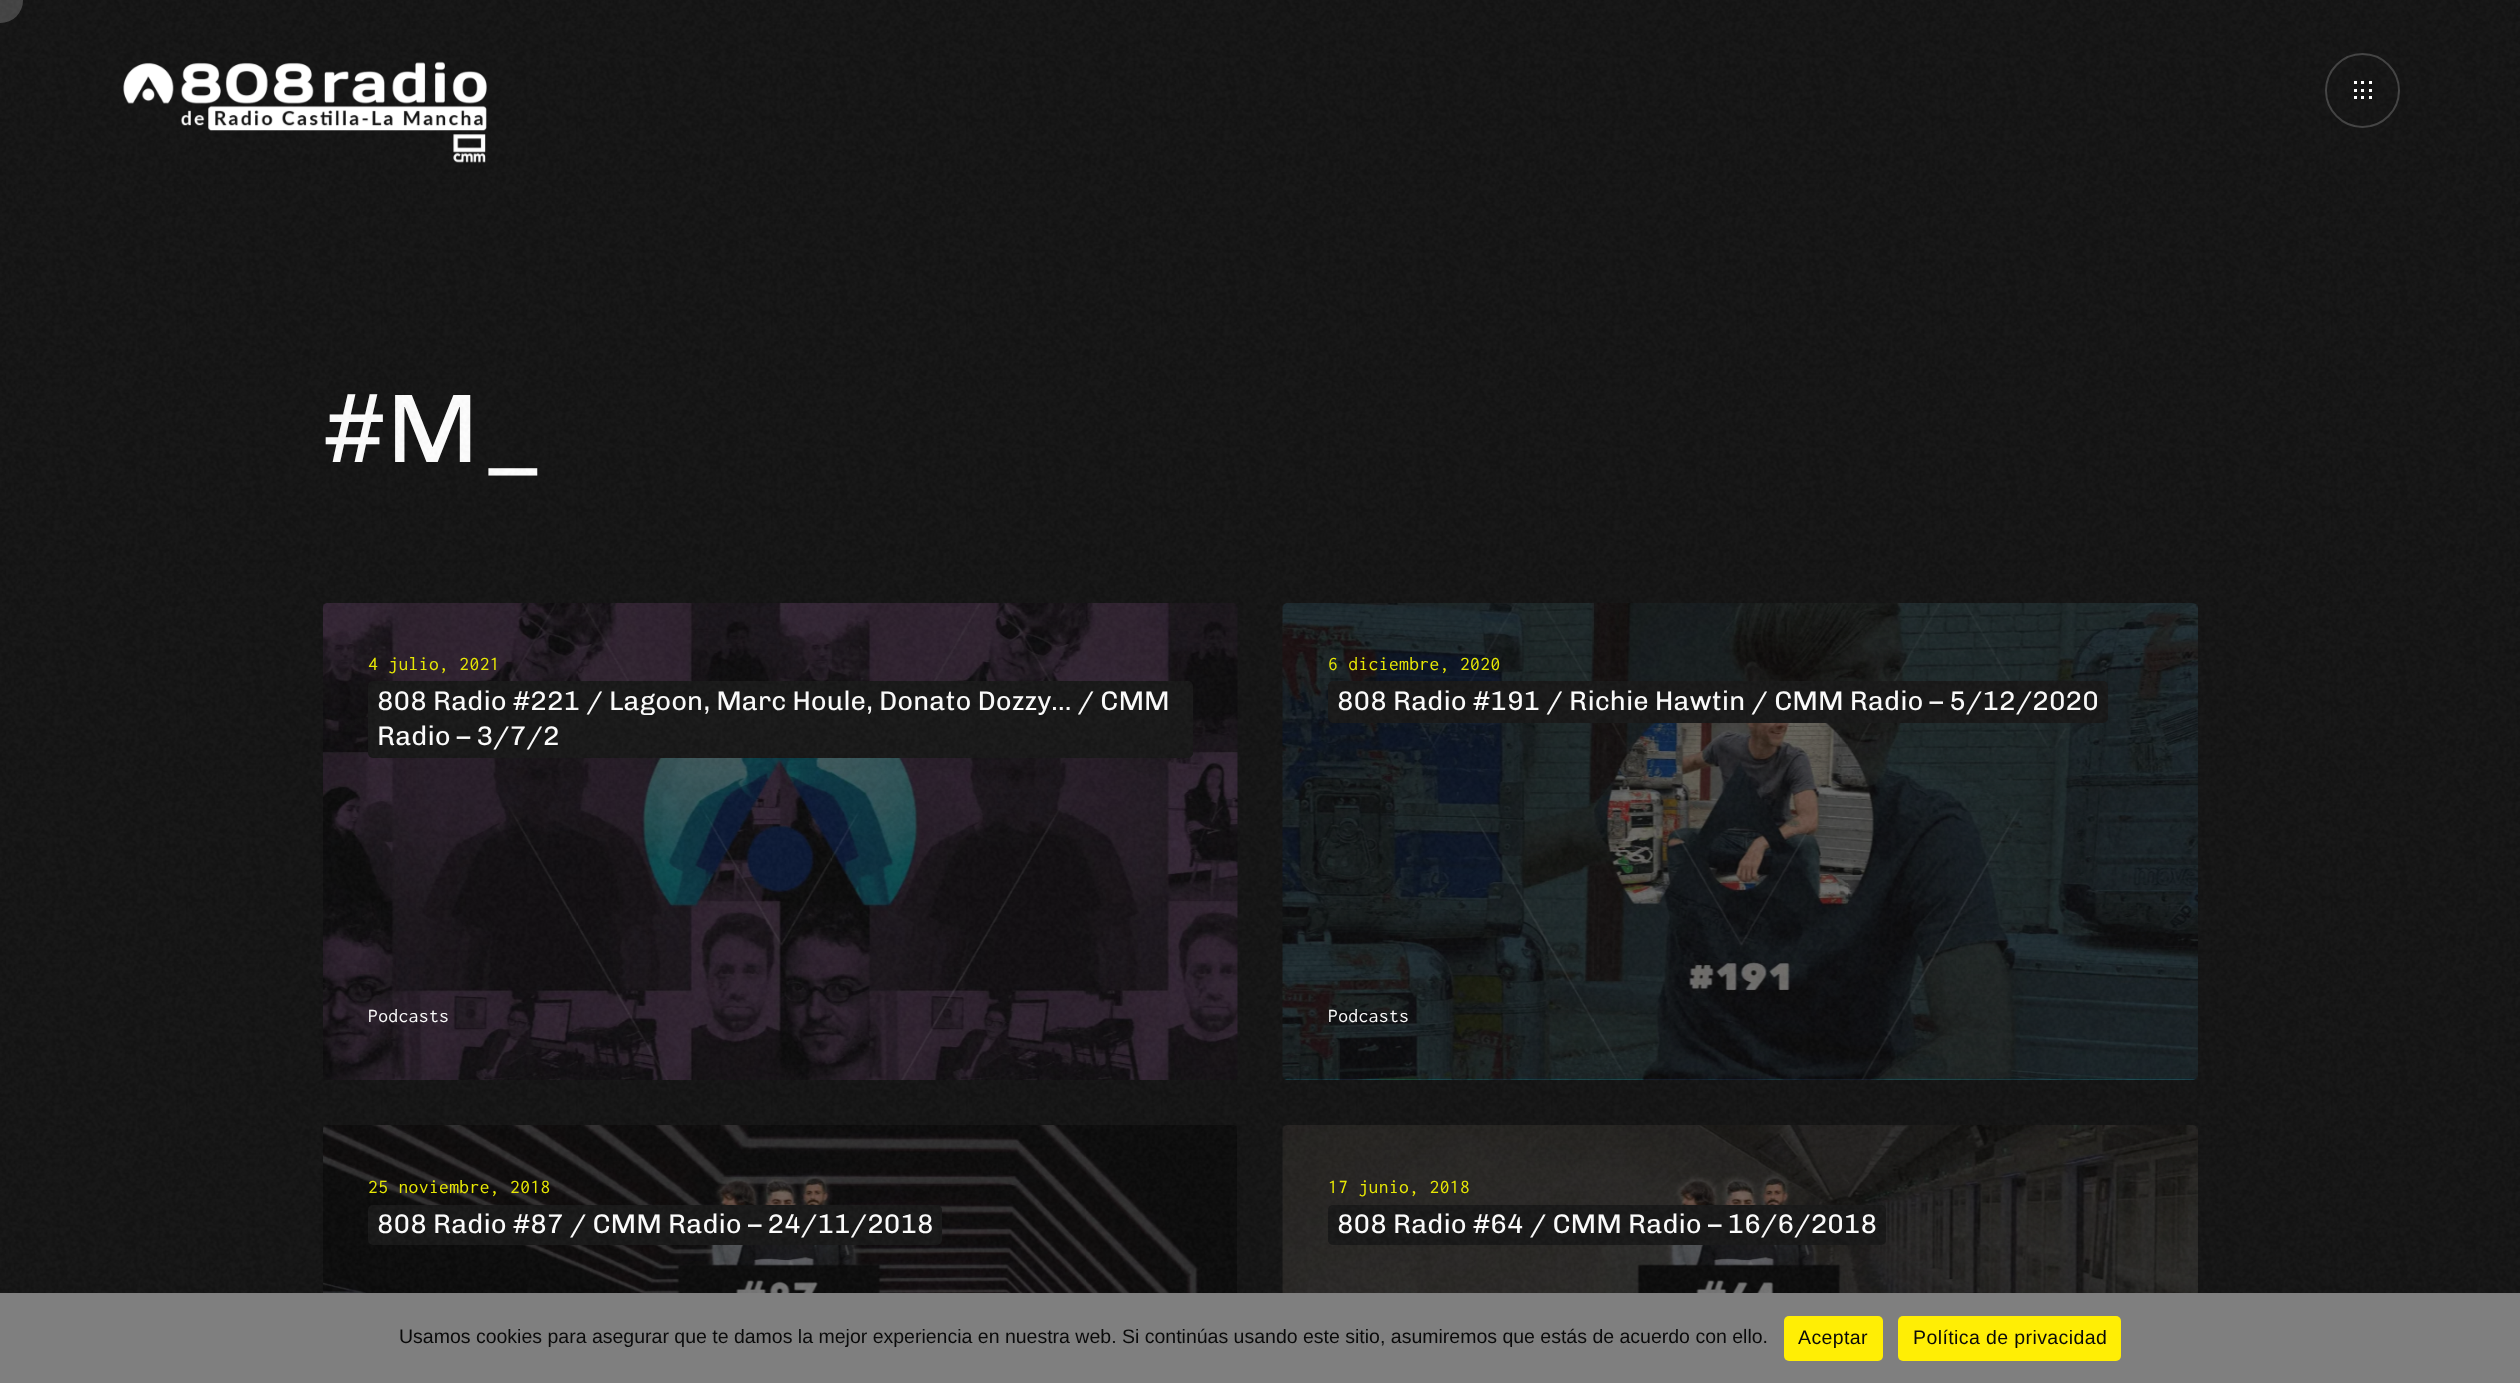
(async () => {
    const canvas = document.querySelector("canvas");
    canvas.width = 2520;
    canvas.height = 1383;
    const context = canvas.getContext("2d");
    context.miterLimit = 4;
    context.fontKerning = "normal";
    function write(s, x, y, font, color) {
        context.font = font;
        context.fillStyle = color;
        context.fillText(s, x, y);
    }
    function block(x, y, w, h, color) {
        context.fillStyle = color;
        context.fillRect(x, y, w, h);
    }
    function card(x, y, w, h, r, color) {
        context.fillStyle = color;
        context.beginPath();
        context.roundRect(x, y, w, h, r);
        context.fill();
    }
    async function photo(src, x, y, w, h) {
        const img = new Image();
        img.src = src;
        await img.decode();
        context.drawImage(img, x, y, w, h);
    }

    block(0, 0, 2520, 1383, "rgb(18, 18, 18)");
    write("#M_", 323, 462, "97.5px Chivo", "rgb(255, 255, 255)");
    await photo("media/3.png", 323, 603, 915, 477);
    context.letterSpacing = "0.4px";
    write("4 julio, 2021", 368, 670, "19.5px Inconsolata", "rgb(237, 237, 0)");
    card(368, 681, 825, 77, 5, "rgb(22, 22, 22)");
    context.letterSpacing = "0px";
    write("808 Radio #221 / Lagoon, Marc Houle, Donato Dozzy… / CMM", 377, 710, "27px Chivo", "rgb(255, 255, 255)");
    write("Radio – 3/7/2", 377, 745, "27px Chivo", "rgb(255, 255, 255)");
    context.letterSpacing = "0.4px";
    write("Podcasts", 368, 1022, "19.5px Inconsolata", "rgb(255, 255, 255)");
    await photo("media/4.png", 1282, 603, 916, 477);
    write("6 diciembre, 2020", 1328, 670, "19.5px Inconsolata", "rgb(237, 237, 0)");
    card(1328, 681, 780, 42, 5, "rgb(22, 22, 22)");
    context.letterSpacing = "0px";
    write("808 Radio #191 / Richie Hawtin / CMM Radio – 5/12/2020", 1337, 710, "27px Chivo", "rgb(255, 255, 255)");
    context.letterSpacing = "0.4px";
    write("Podcasts", 1328, 1022, "19.5px Inconsolata", "rgb(255, 255, 255)");
    await photo("media/5.png", 323, 1125, 914, 168);
    write("25 noviembre, 2018", 368, 1193, "19.5px Inconsolata", "rgb(237, 237, 0)");
    card(368, 1205, 574, 40, 5, "rgb(22, 22, 22)");
    context.letterSpacing = "0px";
    write("808 Radio #87 / CMM Radio – 24/11/2018", 377, 1233, "27px Chivo", "rgb(255, 255, 255)");
    await photo("media/6.png", 1282, 1125, 916, 168);
    context.letterSpacing = "0.4px";
    write("17 junio, 2018", 1328, 1193, "19.5px Inconsolata", "rgb(237, 237, 0)");
    card(1328, 1205, 558, 40, 5, "rgb(22, 22, 22)");
    context.letterSpacing = "0px";
    write("808 Radio #64 / CMM Radio – 16/6/2018", 1337, 1233, "27px Chivo", "rgb(255, 255, 255)");
    await photo("media/1.png", 0, 0, 2520, 1293);
    context.fillStyle = "rgba(255, 255, 255, 0.2)";
    context.beginPath();
    context.arc(0.5, 0.5, 22.5, 0, Math.PI * 2);
    context.fill();
    await photo("media/2.png", 123, 61, 364, 103);
    context.beginPath();
    context.arc(2362.5, 90.5, 36.5, 0, Math.PI * 2);
    context.strokeStyle = "rgba(255, 255, 255, 0.2)";
    context.lineWidth = 2;
    context.stroke();
    block(2354, 81, 3, 3, "rgb(255, 255, 255)");
    block(2361, 81, 3, 3, "rgb(255, 255, 255)");
    block(2369, 81, 3, 3, "rgb(255, 255, 255)");
    block(2354, 89, 3, 3, "rgb(255, 255, 255)");
    block(2361, 89, 3, 3, "rgb(255, 255, 255)");
    block(2369, 89, 3, 3, "rgb(255, 255, 255)");
    block(2354, 96, 3, 3, "rgb(255, 255, 255)");
    block(2361, 96, 3, 3, "rgb(255, 255, 255)");
    block(2369, 96, 3, 3, "rgb(255, 255, 255)");
    block(0, 1293, 2520, 90, "rgb(127, 127, 127)");
    write("Usamos cookies para asegurar que te damos la mejor experiencia en nuestra web. Si continúas usando este sitio, asumiremos que estás de acuerdo con ello.", 399, 1343, "19.5px Liberation Sans", "rgb(10, 10, 10)");
    card(1784, 1316, 99, 45, 5, "rgb(255, 238, 5)");
    context.letterSpacing = "0.4px";
    write("Aceptar", 1798, 1344, "19.5px Liberation Sans", "rgb(10, 10, 10)");
    card(1898, 1316, 223, 45, 5, "rgb(255, 238, 5)");
    write("Política de privacidad", 1913, 1344, "19.5px Liberation Sans", "rgb(10, 10, 10)");
})();
